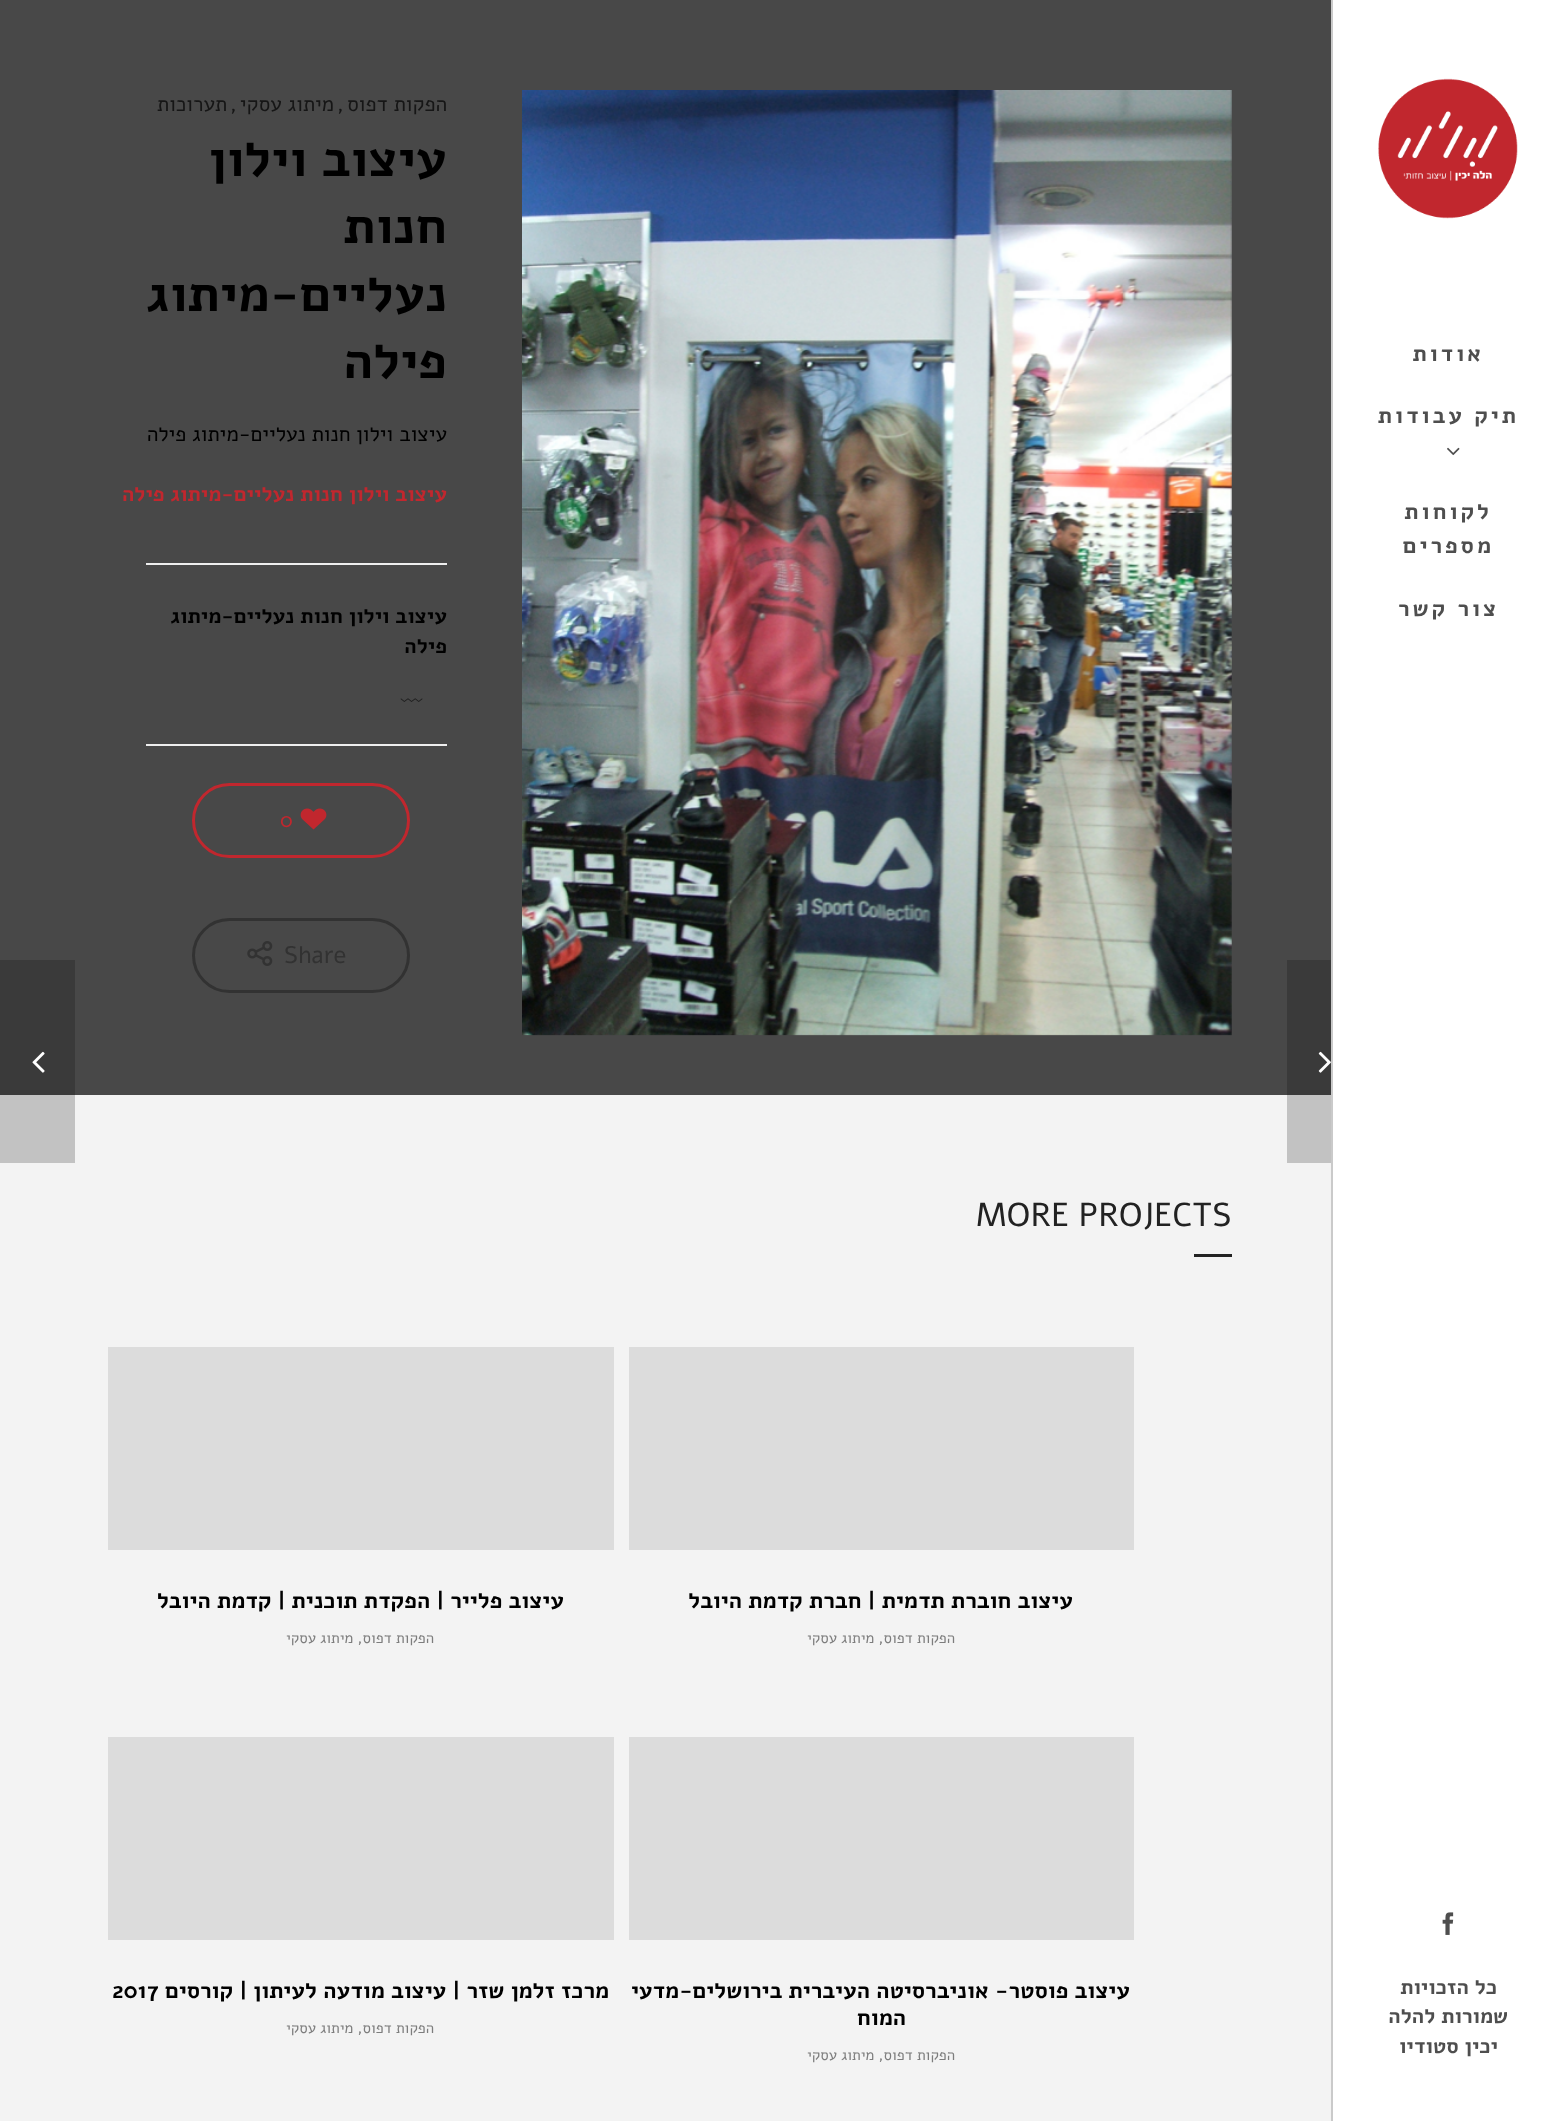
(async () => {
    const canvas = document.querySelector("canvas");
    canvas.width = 1565;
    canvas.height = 2121;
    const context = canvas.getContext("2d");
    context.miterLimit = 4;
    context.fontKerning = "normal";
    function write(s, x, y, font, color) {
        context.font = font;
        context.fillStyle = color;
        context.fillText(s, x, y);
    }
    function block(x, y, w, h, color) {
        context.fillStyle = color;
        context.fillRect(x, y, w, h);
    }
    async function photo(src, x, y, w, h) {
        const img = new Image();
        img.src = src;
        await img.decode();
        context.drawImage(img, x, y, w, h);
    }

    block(0, 0, 1565, 2121, "rgb(72, 72, 72)");
    block(1333, 0, 232, 2121, "rgb(255, 255, 255)");
    block(1331, 0, 2, 2121, "rgb(202, 202, 202)");
    await photo("media/1.png", 1378, 78, 140, 141);
    context.letterSpacing = "3px";
    context.direction = "rtl";
    write("אודות", 1484, 361, "bold 22.5px Alef", "rgb(78, 78, 78)");
    write("תיק עבודות", 1519, 423, "bold 22.5px Alef", "rgb(78, 78, 78)");
    await photo("media/2.png", 1447, 447, 13, 9);
    write("לקוחות", 1492, 519, "bold 22.5px Alef", "rgb(78, 78, 78)");
    write("מספרים", 1494, 553, "bold 22.5px Alef", "rgb(78, 78, 78)");
    write("צור קשר", 1499, 616, "bold 22.5px Alef", "rgb(78, 78, 78)");
    await photo("media/3.png", 1442, 1912, 12, 23);
    context.letterSpacing = "0px";
    write("כל הזכויות", 1497, 1994, "bold 21px Alef", "rgb(78, 78, 78)");
    write("שמורות להלה", 1508, 2023, "bold 21px Alef", "rgb(78, 78, 78)");
    write("יכין סטודיו", 1498, 2053, "bold 21px Alef", "rgb(78, 78, 78)");
    await photo("media/4.png", 522, 90, 710, 946);
    write("הפקות דפוס", 447, 111, "21px Alef", "rgb(22, 22, 22)");
    context.direction = "ltr";
    write(",", 337, 111, "21px Alef", "rgb(22, 22, 22)");
    context.direction = "rtl";
    write("מיתוג עסקי", 334, 111, "21px Alef", "rgb(22, 22, 22)");
    context.direction = "ltr";
    write(",", 230, 111, "21px Alef", "rgb(22, 22, 22)");
    context.direction = "rtl";
    write("תערוכות", 227, 111, "21px Alef", "rgb(22, 22, 22)");
    write("עיצוב וילון", 447, 176, "bold 51px Alef", "rgb(0, 0, 0)");
    write("חנות", 447, 243, "bold 51px Alef", "rgb(0, 0, 0)");
    write("נעליים-מיתוג", 447, 311, "bold 51px Alef", "rgb(0, 0, 0)");
    write("פילה", 447, 378, "bold 51px Alef", "rgb(0, 0, 0)");
    write("עיצוב וילון חנות נעליים-מיתוג פילה", 447, 441, "21px Alef", "rgb(0, 0, 0)");
    write("עיצוב וילון חנות נעליים-מיתוג פילה", 447, 501, "bold 21px Alef", "rgb(193, 39, 46)");
    block(146, 563, 301, 2, "rgb(238, 238, 238)");
    write("עיצוב וילון חנות נעליים-מיתוג", 447, 623, "bold 21px Alef", "rgb(0, 0, 0)");
    write("פילה", 447, 653, "bold 21px Alef", "rgb(0, 0, 0)");
    await photo("media/5.png", 400, 698, 23, 4);
    block(146, 744, 301, 2, "rgb(238, 238, 238)");
    context.beginPath();
    context.roundRect(193.5, 784.5, 215, 72, 36);
    context.strokeStyle = "rgb(193, 39, 46)";
    context.lineWidth = 3;
    context.stroke();
    await photo("media/6.png", 300, 808, 27, 22);
    context.direction = "ltr";
    write("0", 280, 827, "21px Alef", "rgb(193, 39, 46)");
    context.beginPath();
    context.roundRect(193.5, 919.5, 215, 72, 36);
    context.strokeStyle = "rgb(50, 50, 50)";
    context.stroke();
    write("Share", 284, 963, "24px Alef", "rgb(50, 50, 50)");
    await photo("media/7.png", 247, 941, 26, 25);
    block(1287, 960, 44, 135, "rgb(58, 58, 58)");
    await photo("media/8.png", 1318, 1051, 13, 22);
    block(0, 960, 75, 135, "rgb(58, 58, 58)");
    await photo("media/9.png", 32, 1051, 13, 22);
    block(0, 1095, 1331, 1026, "rgb(243, 243, 243)");
    block(1287, 1095, 44, 68, "rgb(194, 194, 194)");
    block(0, 1095, 75, 68, "rgb(194, 194, 194)");
    write("MORE PROJECTS", 976, 1226, "33px Alef", "rgb(34, 34, 34)");
    block(1194, 1254, 38, 3, "rgb(34, 34, 34)");
    block(629, 1347, 505, 203, "rgb(220, 220, 220)");
    context.direction = "rtl";
    write("עיצוב חוברת תדמית | חברת קדמת היובל", 1073, 1608, "bold 22.5px Alef", "rgb(0, 0, 0)");
    write("הפקות דפוס, מיתוג עסקי", 955, 1643, "15px Alef", "rgb(125, 125, 125)");
    block(108, 1347, 506, 203, "rgb(220, 220, 220)");
    write("עיצוב פלייר | הפקדת תוכנית | קדמת היובל", 564, 1608, "bold 22.5px Alef", "rgb(0, 0, 0)");
    write("הפקות דפוס, מיתוג עסקי", 434, 1643, "15px Alef", "rgb(125, 125, 125)");
    block(629, 1737, 505, 203, "rgb(220, 220, 220)");
    write("עיצוב פוסטר- אוניברסיטה העיברית בירושלים-מדעי", 1130, 1998, "bold 22.5px Alef", "rgb(0, 0, 0)");
    write("המוח", 906, 2025, "bold 22.5px Alef", "rgb(0, 0, 0)");
    write("הפקות דפוס, מיתוג עסקי", 955, 2060, "15px Alef", "rgb(125, 125, 125)");
    block(108, 1737, 506, 203, "rgb(220, 220, 220)");
    write("מרכז זלמן שזר | עיצוב מודעה לעיתון | קורסים", 609, 1998, "bold 22.5px Alef", "rgb(0, 0, 0)");
    context.direction = "ltr";
    write("2017", 112, 1998, "bold 22.5px Alef", "rgb(0, 0, 0)");
    context.direction = "rtl";
    write("הפקות דפוס, מיתוג עסקי", 434, 2033, "15px Alef", "rgb(125, 125, 125)");
})();
